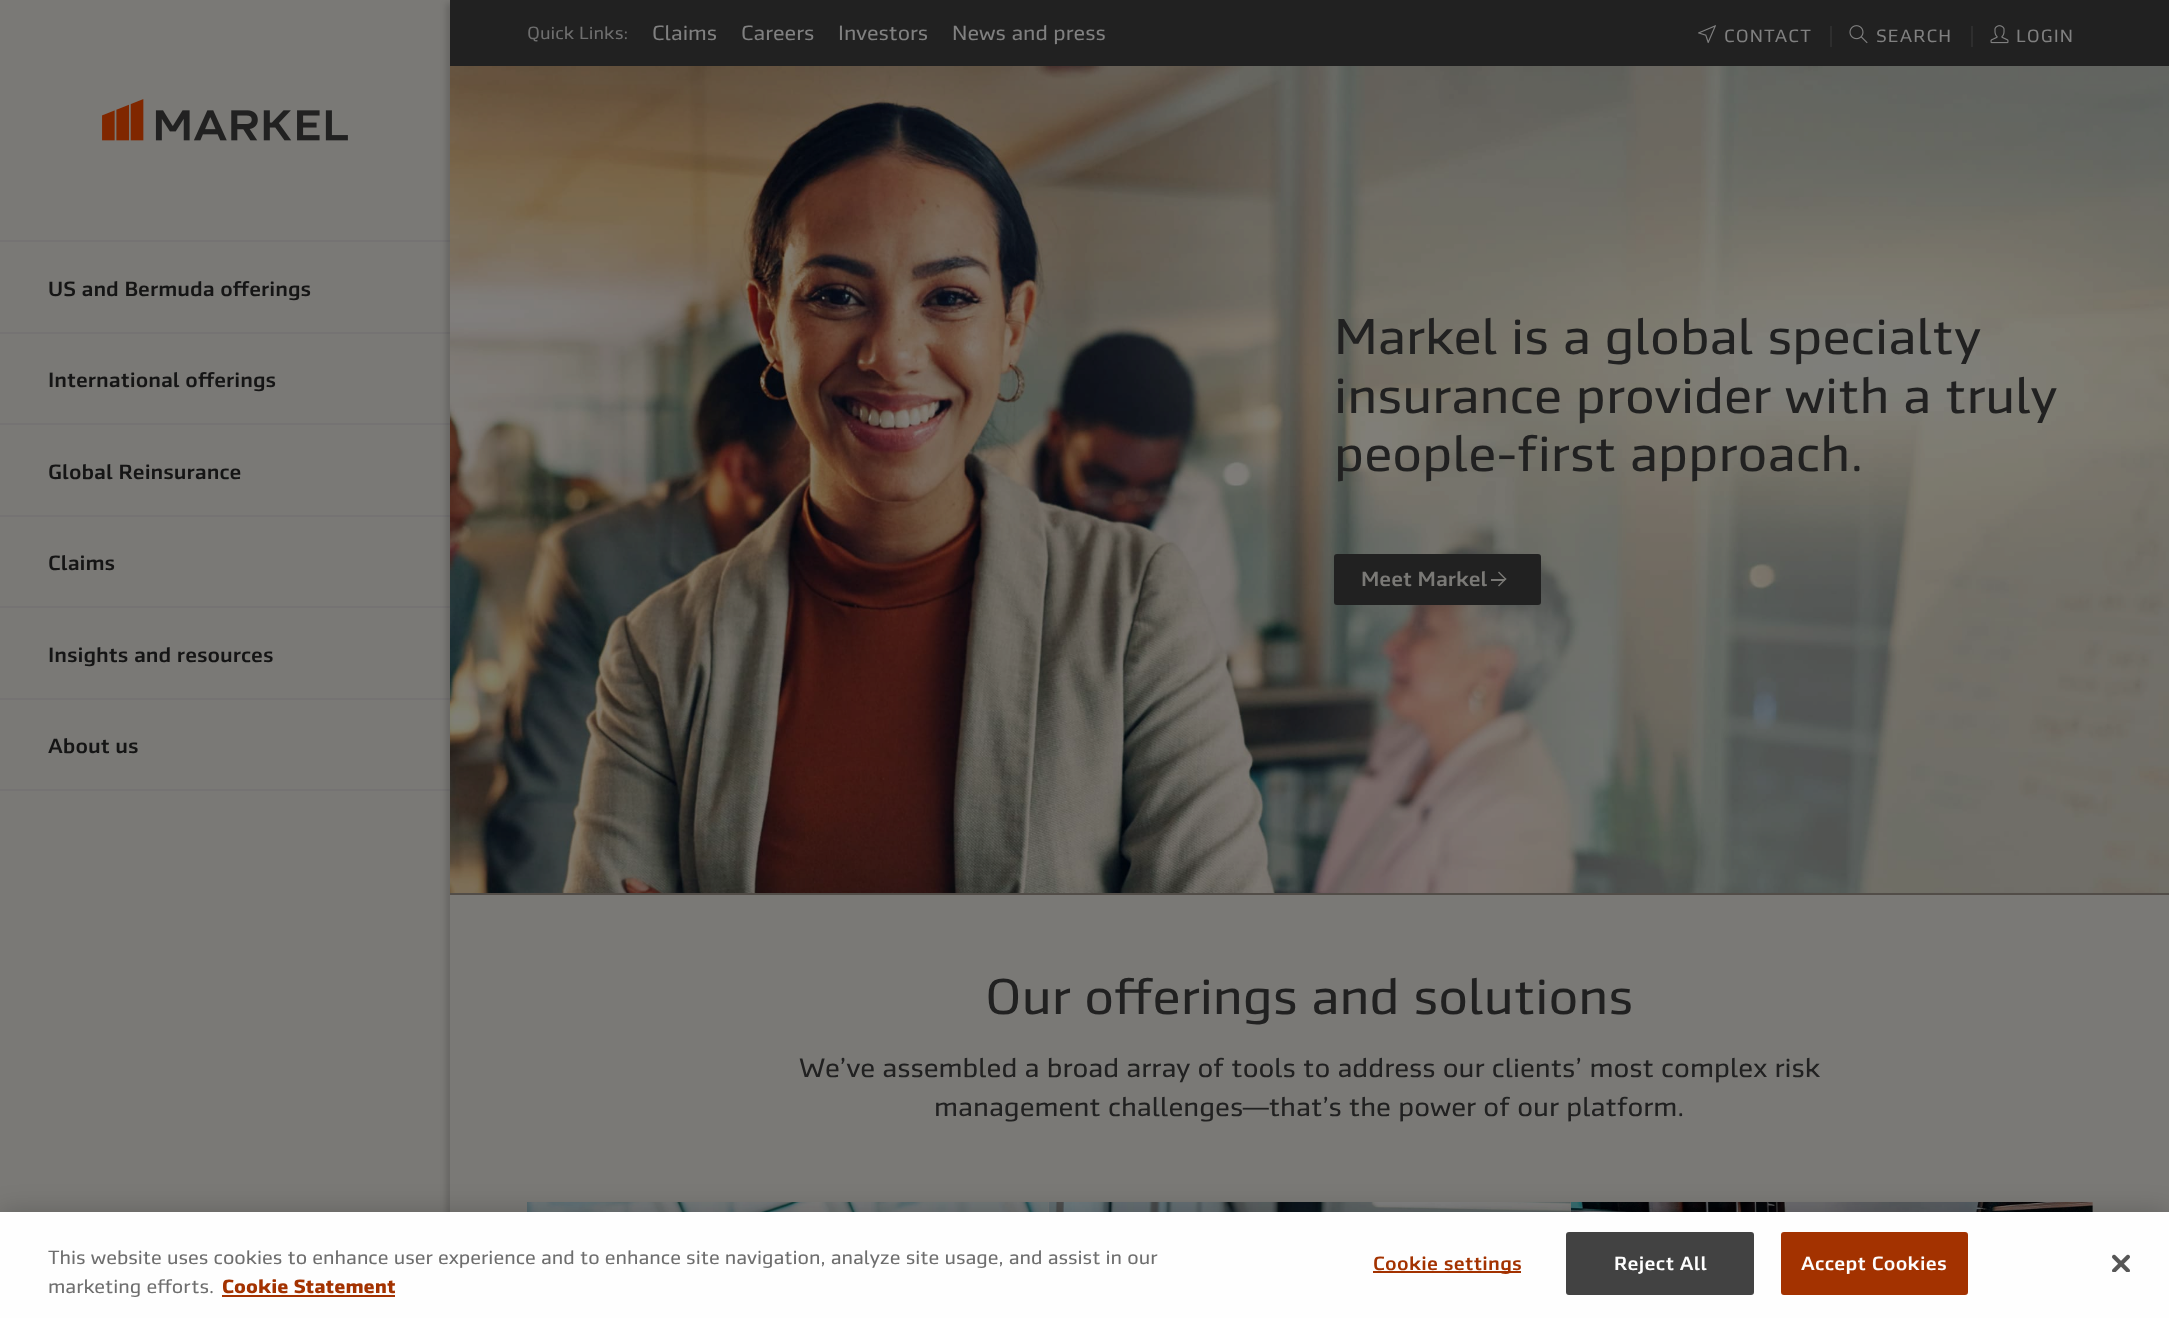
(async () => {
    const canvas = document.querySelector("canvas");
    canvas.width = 2169;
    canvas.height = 1318;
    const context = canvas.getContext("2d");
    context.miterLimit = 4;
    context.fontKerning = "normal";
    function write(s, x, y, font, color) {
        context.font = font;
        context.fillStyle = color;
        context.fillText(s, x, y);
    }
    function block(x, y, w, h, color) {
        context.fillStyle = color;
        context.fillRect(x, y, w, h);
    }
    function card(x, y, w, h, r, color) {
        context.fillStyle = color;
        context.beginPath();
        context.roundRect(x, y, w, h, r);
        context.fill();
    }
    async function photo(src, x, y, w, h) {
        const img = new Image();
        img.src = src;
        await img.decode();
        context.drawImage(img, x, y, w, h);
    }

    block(0, 0, 2169, 1318, "rgb(122, 121, 118)");
    await photo("media/1.png", 102, 99, 246, 42);
    block(0, 789, 450, 2, "rgb(117, 115, 115)");
    block(0, 240, 450, 2, "rgb(117, 115, 115)");
    write("US and Bermuda offerings", 48, 296, "500 21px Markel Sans", "rgb(21, 21, 21)");
    block(0, 332, 450, 2, "rgb(117, 115, 115)");
    write("International offerings", 48, 387, "500 21px Markel Sans", "rgb(21, 21, 21)");
    block(0, 423, 450, 2, "rgb(117, 115, 115)");
    write("Global Reinsurance", 48, 479, "500 21px Markel Sans", "rgb(21, 21, 21)");
    block(0, 515, 450, 2, "rgb(117, 115, 115)");
    write("Claims", 48, 570, "500 21px Markel Sans", "rgb(21, 21, 21)");
    block(0, 606, 450, 2, "rgb(117, 115, 115)");
    write("Insights and resources", 48, 662, "500 21px Markel Sans", "rgb(21, 21, 21)");
    block(0, 698, 450, 2, "rgb(117, 115, 115)");
    write("About us", 48, 753, "500 21px Markel Sans", "rgb(21, 21, 21)");
    context.save();
    context.beginPath();
    context.rect(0, 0, 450, 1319);
    context.clip();
    context.fillStyle = "rgba(0, 0, 0, 0.2)";
    context.filter = "blur(3px)";
    context.beginPath();
    context.rect(447, 3, 6, 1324);
    context.fill();
    context.filter = "none";
    context.restore();
    block(450, 0, 1719, 66, "rgb(33, 33, 33)");
    write("Quick Links:", 527, 39, "18px Markel Sans", "rgb(110, 110, 110)");
    write("Claims", 652, 40, "21px Markel Sans", "rgb(128, 128, 128)");
    write("Careers", 741, 40, "21px Markel Sans", "rgb(128, 128, 128)");
    write("Investors", 838, 40, "21px Markel Sans", "rgb(128, 128, 128)");
    write("News and press", 952, 40, "21px Markel Sans", "rgb(128, 128, 128)");
    await photo("media/2.png", 1698, 25, 18, 19);
    context.letterSpacing = "1px";
    write("CONTACT", 1724, 42, "18px Markel Sans", "rgb(128, 128, 128)");
    block(1830, 26, 2, 21, "rgb(46, 46, 46)");
    await photo("media/3.png", 1849, 25, 19, 19);
    write("SEARCH", 1876, 42, "18px Markel Sans", "rgb(128, 128, 128)");
    block(1971, 26, 2, 21, "rgb(46, 46, 46)");
    await photo("media/4.png", 1990, 25, 19, 19);
    write("LOGIN", 2016, 42, "18px Markel Sans", "rgb(128, 128, 128)");
    await photo("media/5.png", 450, 66, 1719, 827);
    block(450, 893, 1719, 2, "rgb(82, 77, 72)");
    context.letterSpacing = "0px";
    write("Markel is a global specialty", 1334, 354, "51px Markel Sans", "rgb(33, 33, 33)");
    write("insurance provider with a truly", 1334, 413, "51px Markel Sans", "rgb(33, 33, 33)");
    write("people-first approach.", 1334, 471, "51px Markel Sans", "rgb(33, 33, 33)");
    card(1334, 554, 207, 51, 3, "rgb(33, 33, 33)");
    write("Meet Markel", 1361, 586, "500 21px Markel Sans", "rgb(122, 121, 118)");
    block(1491, 579, 14, 2, "rgb(122, 121, 118)");
    context.beginPath();
    context.moveTo(1499, 571.5);
    context.lineTo(1506.5, 579);
    context.lineTo(1505.5, 580);
    context.lineTo(1498, 572.5);
    context.closePath();
    context.fill();
    context.beginPath();
    context.moveTo(1505.5, 578);
    context.lineTo(1506.5, 579);
    context.lineTo(1499, 586.5);
    context.lineTo(1498, 585.5);
    context.closePath();
    context.fill();
    write("Our offerings and solutions", 985, 1014, "51px Markel Sans", "rgb(33, 33, 33)");
    write("We’ve assembled a broad array of tools to address our clients’ most complex risk", 799, 1077, "27px Markel Sans", "rgb(33, 33, 33)");
    write("management challenges—that’s the power of our platform.", 934, 1116, "27px Markel Sans", "rgb(33, 33, 33)");
    await photo("media/6.png", 527, 1202, 522, 10);
    await photo("media/7.png", 1049, 1202, 522, 10);
    await photo("media/8.png", 1571, 1202, 522, 10);
    context.fillStyle = "rgba(0, 0, 0, 0.2)";
    context.filter = "blur(13.5px)";
    context.beginPath();
    context.rect(0, 1212, 2169, 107);
    context.fill();
    context.filter = "none";
    block(0, 1212, 2169, 106, "rgb(254, 254, 254)");
    write("This website uses cookies to enhance user experience and to enhance site navigation, analyze site usage, and assist in our", 48, 1264, "19.5px Markel Sans", "rgb(110, 110, 110)");
    write("marketing efforts.", 48, 1293, "19.5px Markel Sans", "rgb(110, 110, 110)");
    write("Cookie Statement", 222, 1293, "bold 19.5px Markel Sans", "rgb(163, 50, 0)");
    block(222, 1295, 173, 2, "rgb(163, 50, 0)");
    block(1373, 1271, 148, 2, "rgb(163, 50, 0)");
    context.letterSpacing = "0.25px";
    write("Cookie settings", 1373, 1270, "500 19.5px Markel Sans", "rgb(163, 50, 0)");
    context.fillStyle = "rgb(66, 66, 66)";
    context.beginPath();
    context.roundRect(1567, 1233, 186, 61, 2);
    context.fill();
    context.strokeStyle = "rgb(66, 66, 66)";
    context.lineWidth = 2;
    context.stroke();
    write("Reject All", 1614, 1270, "500 19.5px Markel Sans", "rgb(254, 254, 254)");
    context.fillStyle = "rgb(163, 50, 0)";
    context.beginPath();
    context.roundRect(1782, 1233, 185, 61, 2);
    context.fill();
    context.strokeStyle = "rgb(163, 50, 0)";
    context.stroke();
    write("Accept Cookies", 1801, 1270, "500 19.5px Markel Sans", "rgb(254, 254, 254)");
    await photo("media/9.png", 2112, 1254, 18, 18);
})();
